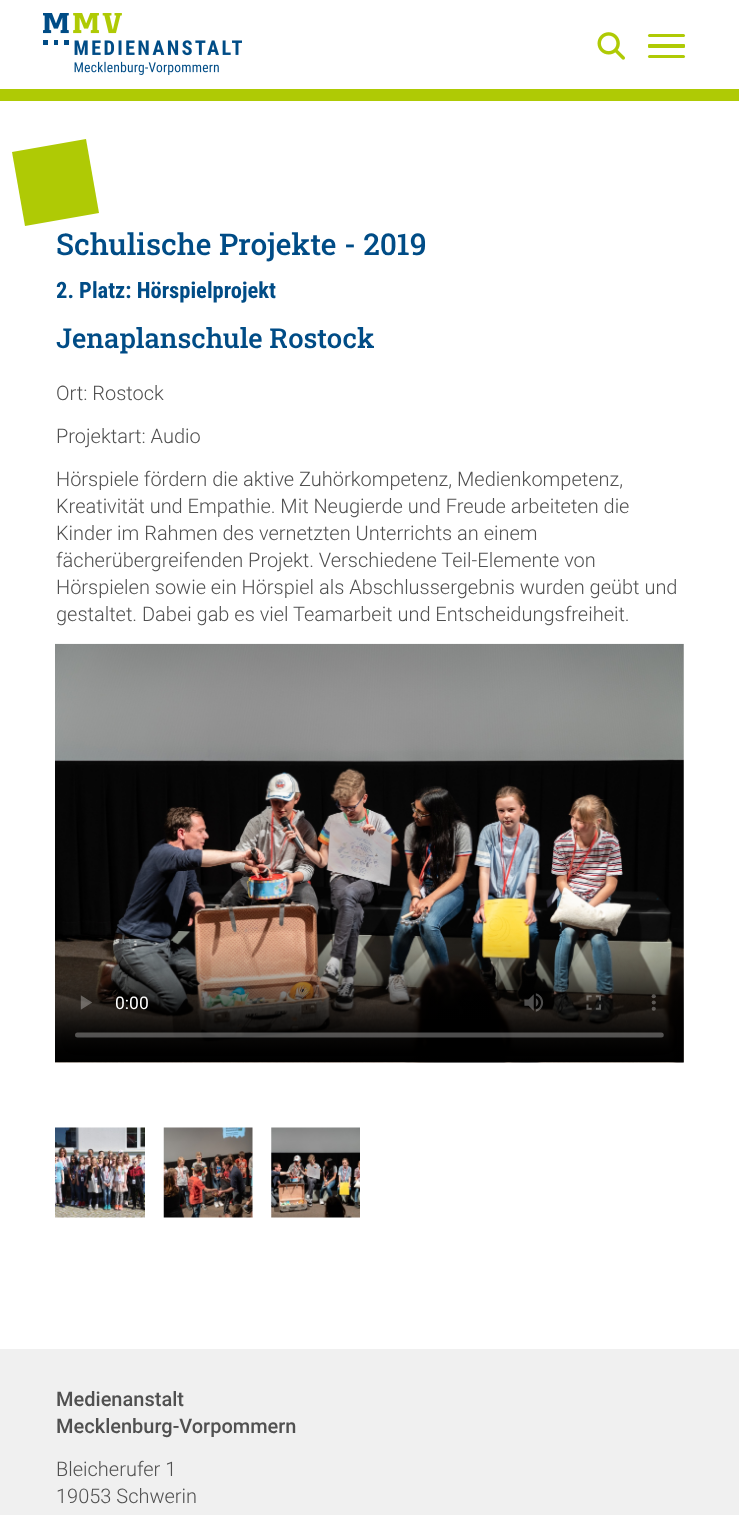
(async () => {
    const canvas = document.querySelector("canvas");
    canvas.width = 739;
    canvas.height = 1515;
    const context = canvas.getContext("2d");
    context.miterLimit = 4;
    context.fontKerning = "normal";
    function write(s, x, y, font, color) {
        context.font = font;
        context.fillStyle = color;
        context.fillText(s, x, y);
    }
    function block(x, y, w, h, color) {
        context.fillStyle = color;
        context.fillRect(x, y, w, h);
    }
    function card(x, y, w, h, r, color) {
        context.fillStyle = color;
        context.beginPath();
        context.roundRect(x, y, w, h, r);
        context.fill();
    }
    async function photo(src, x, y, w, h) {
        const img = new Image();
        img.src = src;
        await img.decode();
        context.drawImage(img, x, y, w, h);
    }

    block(0, 0, 739, 1515, "rgb(255, 255, 255)");
    block(0, 89, 739, 12, "rgb(175, 202, 5)");
    await photo("media/1.png", 43, 13, 199, 62);
    await photo("media/2.png", 597, 32, 28, 28);
    card(648, 34, 37, 3, 1.5, "rgb(175, 202, 5)");
    card(648, 44, 37, 4, 1, "rgb(175, 202, 5)");
    card(648, 55, 37, 3, 1.5, "rgb(175, 202, 5)");
    context.beginPath();
    context.moveTo(12, 152);
    context.lineTo(86, 139);
    context.lineTo(99, 213);
    context.lineTo(25, 226);
    context.closePath();
    context.fill();
    write("Schulische Projekte - 2019", 56, 255, "500 30px Roboto Slab", "rgb(0, 76, 134)");
    write("2. Platz: Hörspielprojekt", 56, 298, "bold 22.5px Roboto Condensed", "rgb(0, 76, 134)");
    write("Jenaplanschule Rostock", 56, 348, "500 27.5px Roboto Slab", "rgb(0, 76, 134)");
    write("Ort: Rostock", 56, 400, "300 20px Roboto", "rgb(80, 80, 80)");
    write("Projektart: Audio", 56, 443, "300 20px Roboto", "rgb(80, 80, 80)");
    write("Hörspiele fördern die aktive Zuhörkompetenz, Medienkompetenz,", 56, 486, "300 20px Roboto", "rgb(80, 80, 80)");
    write("Kreativität und Empathie. Mit Neugierde und Freude arbeiteten die", 56, 513, "300 20px Roboto", "rgb(80, 80, 80)");
    write("Kinder im Rahmen des vernetzten Unterrichts an einem", 56, 540, "300 20px Roboto", "rgb(80, 80, 80)");
    write("fächerübergreifenden Projekt. Verschiedene Teil-Elemente von", 56, 567, "300 20px Roboto", "rgb(80, 80, 80)");
    write("Hörspielen sowie ein Hörspiel als Abschlussergebnis wurden geübt und", 56, 594, "300 20px Roboto", "rgb(80, 80, 80)");
    write("gestaltet. Dabei gab es viel Teamarbeit und Entscheidungsfreiheit.", 56, 621, "300 20px Roboto", "rgb(80, 80, 80)");
    await photo("media/3.png", 55, 643, 629, 420);
    await photo("media/4.png", 55, 1127, 90, 91);
    await photo("media/5.png", 163, 1127, 90, 91);
    await photo("media/6.png", 271, 1127, 89, 91);
    block(0, 1349, 739, 166, "rgb(240, 240, 240)");
    write("Medienanstalt", 56, 1406, "500 20px Roboto", "rgb(80, 80, 80)");
    write("Mecklenburg-Vorpommern", 56, 1433, "500 20px Roboto", "rgb(80, 80, 80)");
    write("Bleicherufer 1", 56, 1476, "300 20px Roboto", "rgb(80, 80, 80)");
    write("19053 Schwerin", 56, 1503, "300 20px Roboto", "rgb(80, 80, 80)");
})();
